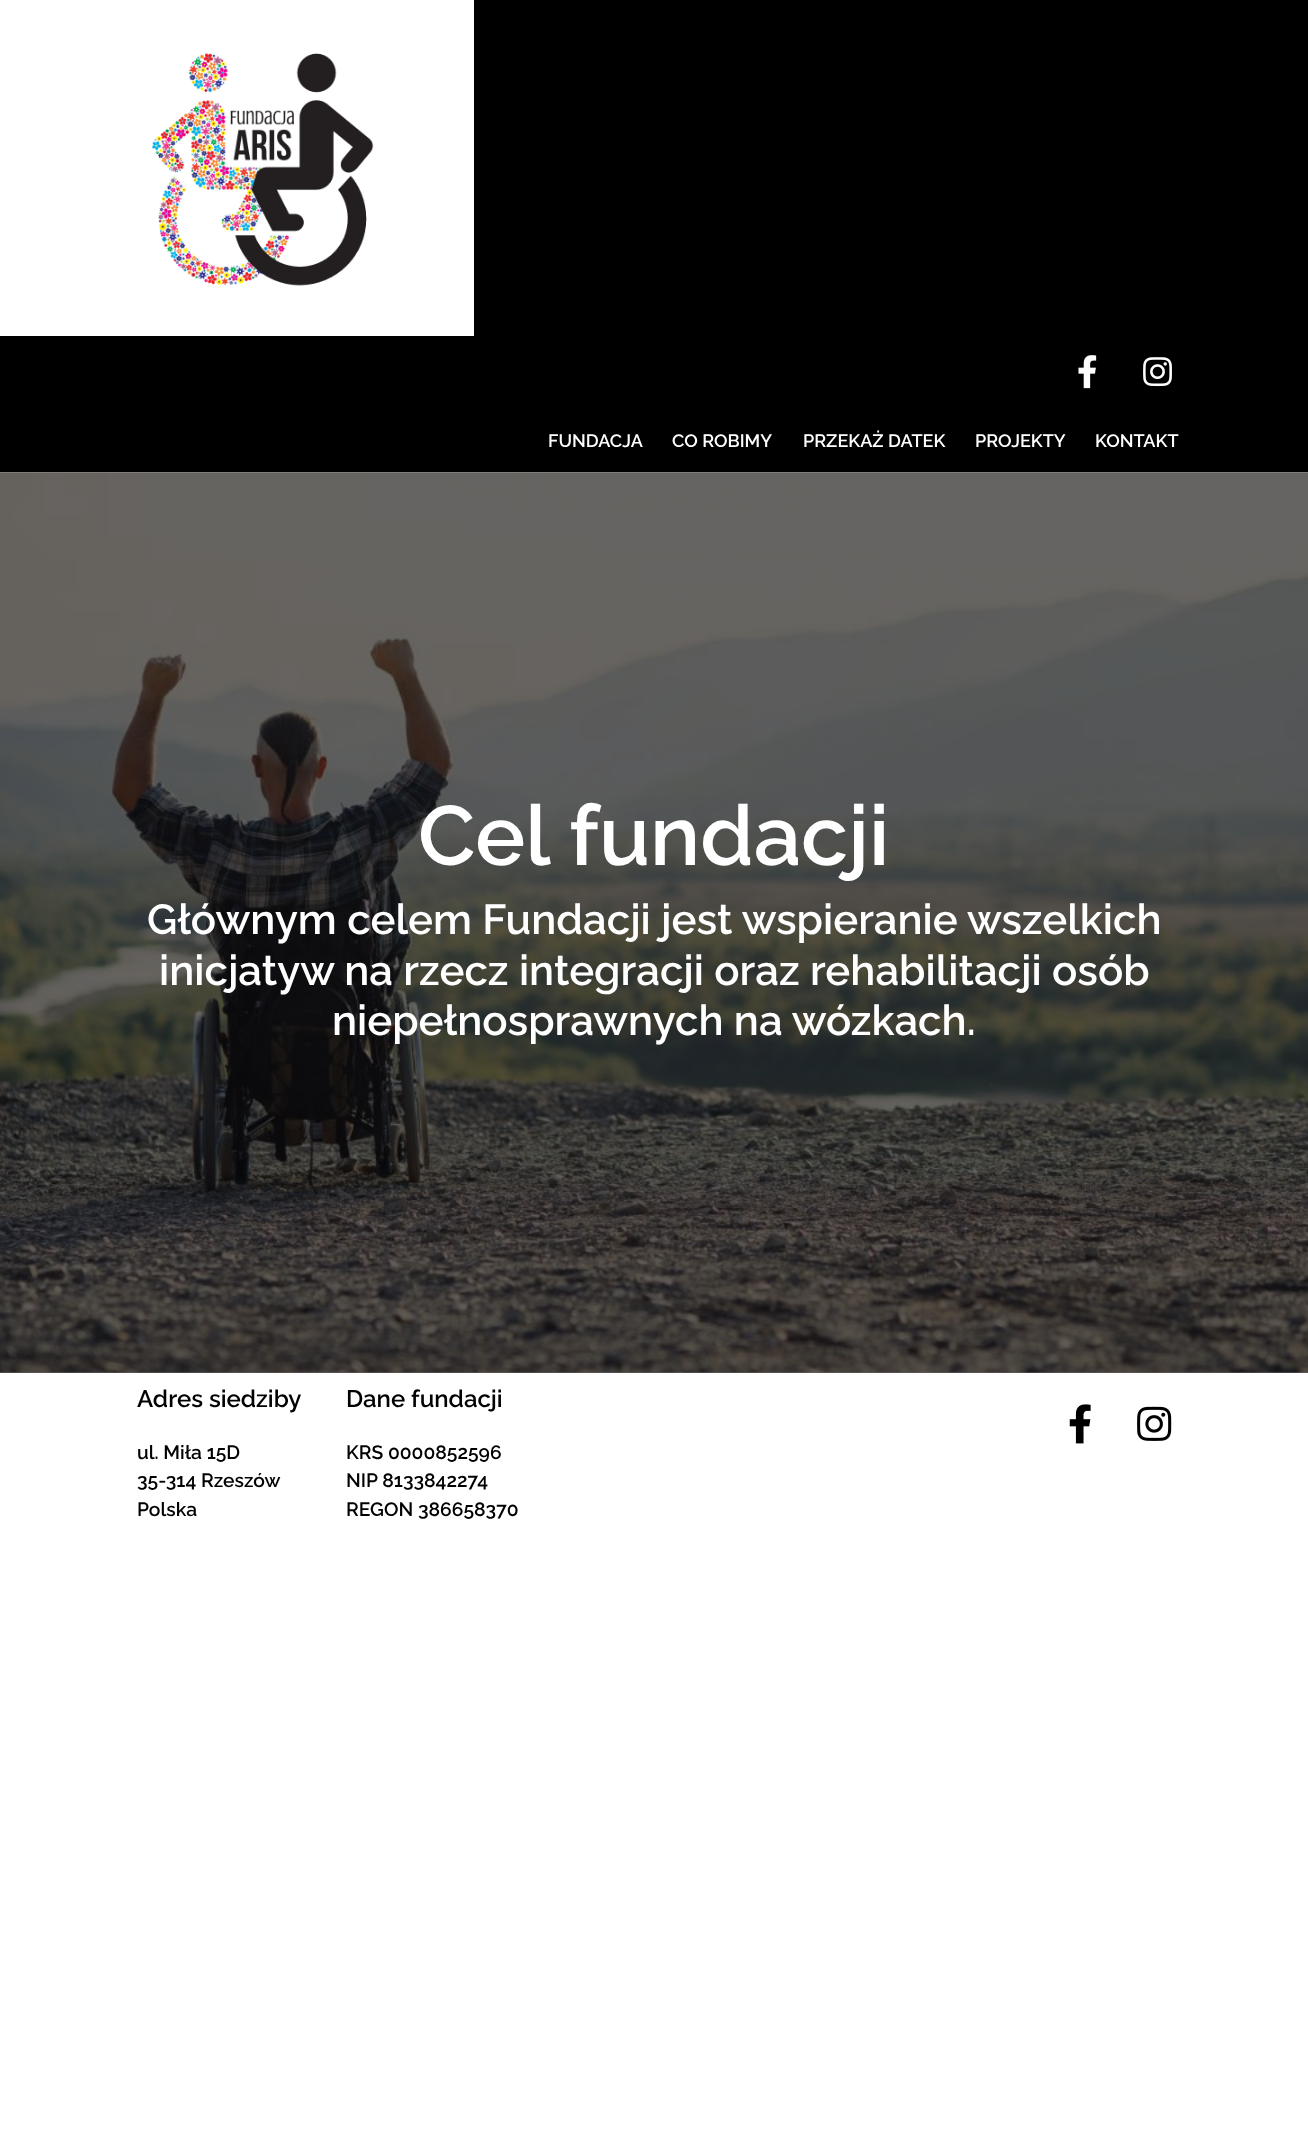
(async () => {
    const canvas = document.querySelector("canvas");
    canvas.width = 1308;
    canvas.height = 2131;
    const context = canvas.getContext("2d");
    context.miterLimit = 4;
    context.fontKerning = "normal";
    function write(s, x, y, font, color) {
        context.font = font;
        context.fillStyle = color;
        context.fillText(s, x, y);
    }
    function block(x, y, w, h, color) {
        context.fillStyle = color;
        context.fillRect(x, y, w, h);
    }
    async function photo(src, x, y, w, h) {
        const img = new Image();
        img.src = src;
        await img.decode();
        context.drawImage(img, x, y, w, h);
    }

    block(0, 0, 1308, 2131, "rgb(255, 255, 255)");
    block(0, 1372, 1308, 1, "rgb(102, 102, 102)");
    block(0, 0, 1308, 473, "rgb(0, 0, 0)");
    block(0, 0, 474, 336, "rgb(255, 255, 255)");
    await photo("media/1.png", 151, 53, 223, 233);
    await photo("media/2.png", 1078, 355, 19, 34);
    await photo("media/3.png", 1143, 357, 29, 30);
    write("FUNDACJA", 548, 447, "600 18px Raleway", "rgb(255, 255, 255)");
    write("CO ROBIMY", 672, 447, "600 18px Raleway", "rgb(255, 255, 255)");
    write("PRZEKAŻ DATEK", 803, 447, "600 18px Raleway", "rgb(255, 255, 255)");
    write("PROJEKTY", 975, 447, "600 18px Raleway", "rgb(255, 255, 255)");
    write("KONTAKT", 1095, 447, "600 18px Raleway", "rgb(255, 255, 255)");
    await photo("media/4.png", 0, 472, 1308, 901);
    write("Cel fundacji", 418, 865, "600 84px Raleway", "rgb(255, 255, 255)");
    write("Głównym celem Fundacji jest wspieranie wszelkich", 147, 934, "600 42px Raleway", "rgb(255, 255, 255)");
    write("inicjatyw na rzecz integracji oraz rehabilitacji osób", 159, 985, "600 42px Raleway", "rgb(255, 255, 255)");
    write("niepełnosprawnych na wózkach.", 332, 1035, "600 42px Raleway", "rgb(255, 255, 255)");
    write("Adres siedziby", 137, 1407, "600 24px Raleway", "rgb(0, 0, 0)");
    write("ul. Miła 15D", 137, 1459, "600 19.25px Raleway", "rgb(0, 0, 0)");
    write("35-314 Rzeszów", 137, 1487, "600 19.25px Raleway", "rgb(0, 0, 0)");
    write("Polska", 137, 1516, "600 19.25px Raleway", "rgb(0, 0, 0)");
    write("Dane fundacji", 346, 1407, "600 24px Raleway", "rgb(0, 0, 0)");
    write("KRS 0000852596", 346, 1459, "600 19.25px Raleway", "rgb(0, 0, 0)");
    write("NIP 8133842274", 346, 1487, "600 19.25px Raleway", "rgb(0, 0, 0)");
    write("REGON 386658370", 346, 1516, "600 19.25px Raleway", "rgb(0, 0, 0)");
    await photo("media/5.png", 1069, 1404, 22, 40);
    await photo("media/6.png", 1137, 1406, 35, 35);
})();
